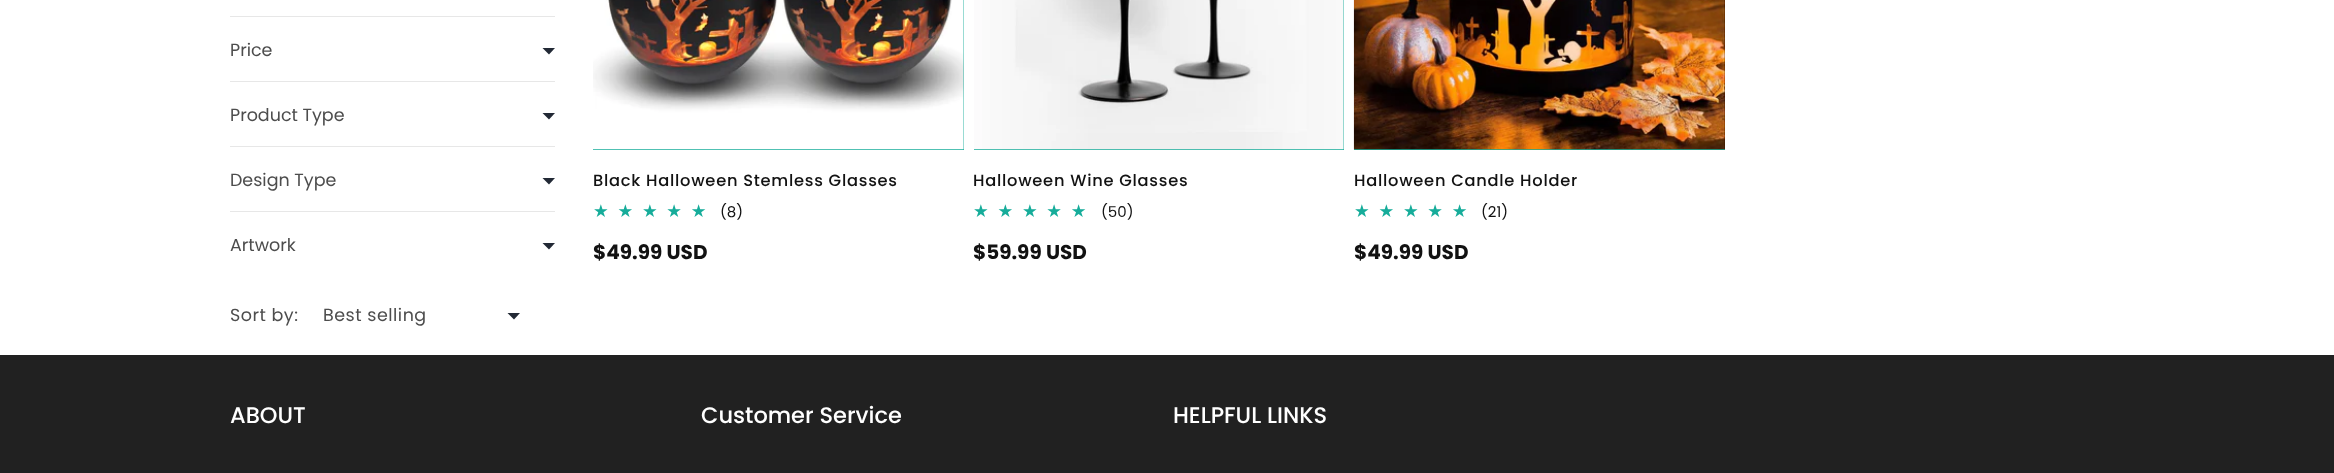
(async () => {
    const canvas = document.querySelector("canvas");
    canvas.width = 2334;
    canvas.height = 473;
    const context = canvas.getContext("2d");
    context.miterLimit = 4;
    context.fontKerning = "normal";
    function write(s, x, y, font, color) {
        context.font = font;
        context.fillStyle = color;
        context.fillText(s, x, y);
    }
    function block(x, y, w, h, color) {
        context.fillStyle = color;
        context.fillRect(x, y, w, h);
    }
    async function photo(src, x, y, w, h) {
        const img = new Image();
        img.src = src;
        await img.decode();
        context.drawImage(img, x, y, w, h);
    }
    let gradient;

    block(0, 0, 2334, 473, "rgb(255, 255, 255)");
    block(230, 16, 325, 1, "rgb(231, 231, 231)");
    write("Price", 230, 56, "17.5px Poppins", "rgb(77, 77, 77)");
    context.fillStyle = "rgb(34, 41, 53)";
    context.beginPath();
    context.moveTo(549, 54.5);
    context.lineTo(542.5, 48);
    context.lineTo(555, 48);
    context.closePath();
    context.fill();
    block(230, 81, 325, 1, "rgb(231, 231, 231)");
    write("Product Type", 230, 121, "17.5px Poppins", "rgb(77, 77, 77)");
    context.fillStyle = "rgb(34, 41, 53)";
    context.beginPath();
    context.moveTo(549, 119.5);
    context.lineTo(542.5, 113);
    context.lineTo(555, 113);
    context.closePath();
    context.fill();
    block(230, 146, 325, 1, "rgb(231, 231, 231)");
    write("Design Type", 230, 186, "17.5px Poppins", "rgb(77, 77, 77)");
    context.fillStyle = "rgb(34, 41, 53)";
    context.beginPath();
    context.moveTo(549, 184.5);
    context.lineTo(542.5, 178);
    context.lineTo(555, 178);
    context.closePath();
    context.fill();
    block(230, 211, 325, 1, "rgb(231, 231, 231)");
    write("Artwork", 230, 251, "17.5px Poppins", "rgb(77, 77, 77)");
    context.fillStyle = "rgb(34, 41, 53)";
    context.beginPath();
    context.moveTo(549, 249.5);
    context.lineTo(542.5, 243);
    context.lineTo(555, 243);
    context.closePath();
    context.fill();
    context.letterSpacing = "0.5px";
    write("Sort by:", 230, 321, "17.5px Poppins", "rgb(77, 77, 77)");
    write("Best selling", 323, 321, "17.5px Poppins", "rgb(77, 77, 77)");
    context.fillStyle = "rgb(34, 41, 53)";
    context.beginPath();
    context.moveTo(514, 319.5);
    context.lineTo(507.5, 313);
    context.lineTo(520, 313);
    context.closePath();
    context.fill();
    block(593, 0, 371, 150, "rgb(22, 172, 154)");
    await photo("media/1.png", 593, 0, 371, 150);
    context.letterSpacing = "0.75px";
    write("Black Halloween Stemless Glasses", 593, 186, "500 16.25px Poppins", "rgb(18, 18, 18)");
    context.letterSpacing = "8.75px";
    context.font = "17.5px DejaVu Sans";
    gradient = context.createLinearGradient(593, 211, 715, 211);
    gradient.addColorStop(1, "rgb(22, 172, 154)");
    gradient.addColorStop(1, "rgb(219, 219, 219)");
    context.fillStyle = gradient;
    context.fillText("★★★★★", 593, 217);
    context.letterSpacing = "0px";
    write("(8)", 720, 217, "15px Poppins", "rgb(18, 18, 18)");
    write("$49.99 USD", 593, 259, "bold 20px Poppins", "rgb(18, 18, 18)");
    block(974, 0, 370, 150, "rgb(22, 172, 154)");
    await photo("media/2.png", 974, 0, 370, 150);
    context.letterSpacing = "0.75px";
    write("Halloween Wine Glasses", 973, 186, "500 16.25px Poppins", "rgb(18, 18, 18)");
    context.letterSpacing = "8.75px";
    context.font = "17.5px DejaVu Sans";
    gradient = context.createLinearGradient(973, 211, 1095, 211);
    gradient.addColorStop(1, "rgb(22, 172, 154)");
    gradient.addColorStop(1, "rgb(219, 219, 219)");
    context.fillStyle = gradient;
    context.fillText("★★★★★", 973, 217);
    context.letterSpacing = "0px";
    write("(50)", 1101, 217, "15px Poppins", "rgb(18, 18, 18)");
    write("$59.99 USD", 973, 259, "bold 20px Poppins", "rgb(18, 18, 18)");
    block(1354, 149, 371, 1, "rgb(22, 172, 154)");
    await photo("media/3.png", 1353, 0, 372, 150);
    context.letterSpacing = "0.75px";
    write("Halloween Candle Holder", 1354, 186, "500 16.25px Poppins", "rgb(18, 18, 18)");
    context.letterSpacing = "8.75px";
    context.font = "17.5px DejaVu Sans";
    gradient = context.createLinearGradient(1354, 211, 1476, 211);
    gradient.addColorStop(1, "rgb(22, 172, 154)");
    gradient.addColorStop(1, "rgb(219, 219, 219)");
    context.fillStyle = gradient;
    context.fillText("★★★★★", 1354, 217);
    context.letterSpacing = "0px";
    write("(21)", 1481, 217, "15px Poppins", "rgb(18, 18, 18)");
    write("$49.99 USD", 1354, 259, "bold 20px Poppins", "rgb(18, 18, 18)");
    block(0, 355, 2334, 118, "rgb(33, 33, 33)");
    write("ABOUT", 230, 423, "500 22.5px Poppins", "rgb(255, 255, 255)");
    write("Customer Service", 701, 423, "500 22.5px Poppins", "rgb(255, 255, 255)");
    write("HELPFUL LINKS", 1173, 423, "500 22.5px Poppins", "rgb(255, 255, 255)");
})();
